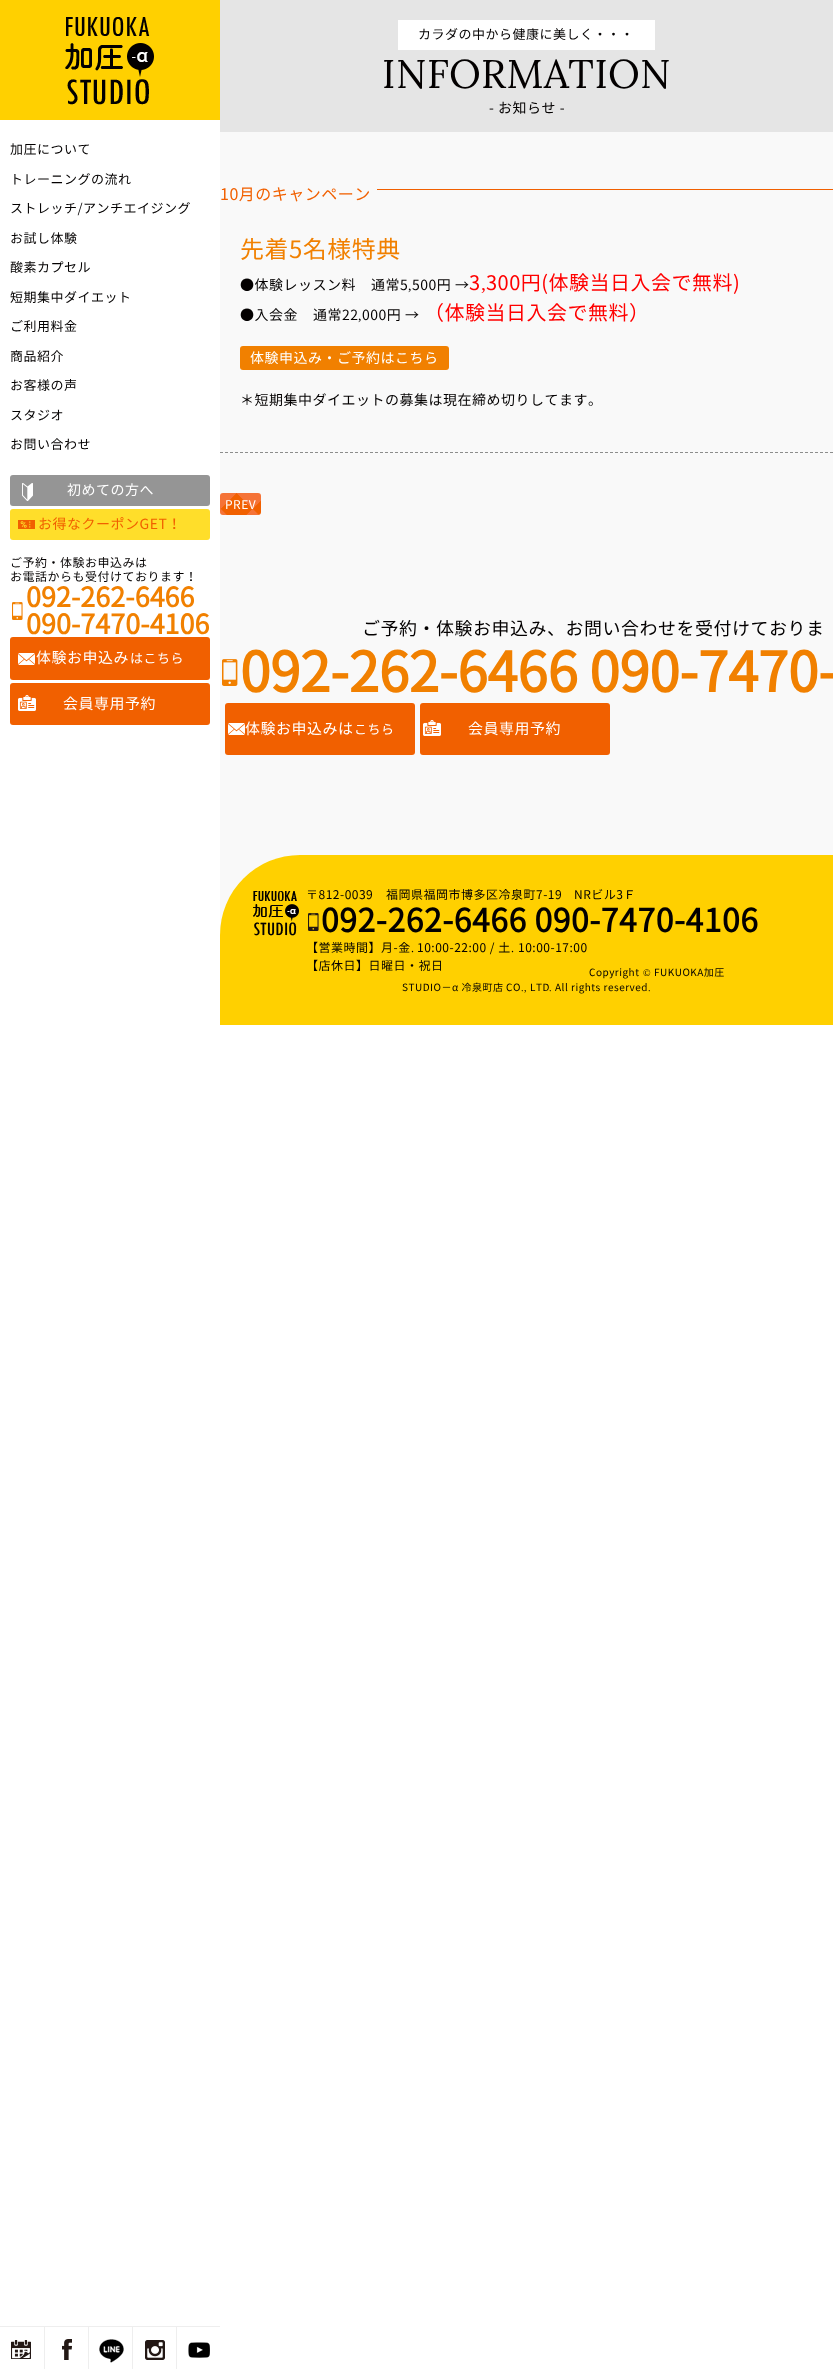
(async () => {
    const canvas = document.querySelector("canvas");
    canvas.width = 833;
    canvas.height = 2369;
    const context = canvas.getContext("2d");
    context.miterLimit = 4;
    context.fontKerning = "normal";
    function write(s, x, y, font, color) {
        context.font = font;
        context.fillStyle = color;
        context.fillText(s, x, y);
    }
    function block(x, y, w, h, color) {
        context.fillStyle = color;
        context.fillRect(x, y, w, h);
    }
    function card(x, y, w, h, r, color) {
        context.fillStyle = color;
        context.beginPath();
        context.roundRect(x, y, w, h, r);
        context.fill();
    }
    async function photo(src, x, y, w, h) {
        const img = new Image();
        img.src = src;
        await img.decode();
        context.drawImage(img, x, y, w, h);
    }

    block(0, 0, 833, 2369, "rgb(255, 255, 255)");
    block(0, 0, 220, 120, "rgb(255, 208, 0)");
    await photo("media/1.png", 65, 17, 89, 88);
    context.letterSpacing = "0.5px";
    write("加圧について", 10, 154, "13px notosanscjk", "rgb(3, 0, 0)");
    write("トレーニングの流れ", 10, 184, "13px notosanscjk", "rgb(3, 0, 0)");
    write("ストレッチ/アンチエイジング", 10, 213, "13px notosanscjk", "rgb(3, 0, 0)");
    write("お試し体験", 10, 243, "13px notosanscjk", "rgb(3, 0, 0)");
    write("酸素カプセル", 10, 272, "13px notosanscjk", "rgb(3, 0, 0)");
    write("短期集中ダイエット", 10, 302, "13px notosanscjk", "rgb(3, 0, 0)");
    write("ご利用料金", 10, 331, "13px notosanscjk", "rgb(3, 0, 0)");
    write("商品紹介", 10, 361, "13px notosanscjk", "rgb(3, 0, 0)");
    write("お客様の声", 10, 390, "13px notosanscjk", "rgb(3, 0, 0)");
    write("スタジオ", 10, 420, "13px notosanscjk", "rgb(3, 0, 0)");
    write("お問い合わせ", 10, 449, "13px notosanscjk", "rgb(3, 0, 0)");
    card(10, 475, 200, 31, 3, "rgb(149, 149, 149)");
    await photo("media/2.png", 22, 483, 11, 18);
    write("初めての方へ", 67, 495, "14px notosanscjk", "rgb(255, 255, 255)");
    card(10, 509, 200, 31, 3, "rgb(255, 222, 42)");
    await photo("media/3.png", 18, 520, 17, 9);
    write("お得なクーポンGET！", 38, 529, "14px notosanscjk", "rgb(241, 96, 0)");
    write("ご予約・体験お申込みは", 10, 567, "12px notosanscjk", "rgb(3, 0, 0)");
    write("お電話からも受付けております！", 10, 581, "12px notosanscjk", "rgb(3, 0, 0)");
    await photo("media/4.png", 12, 602, 11, 18);
    context.letterSpacing = "0px";
    write("092-262-6466", 26, 607, "bold 27px notosanscjk", "rgb(241, 128, 0)");
    write("090-7470-4106", 26, 634, "bold 27px notosanscjk", "rgb(241, 128, 0)");
    card(10, 637, 200, 43, 3, "rgb(241, 96, 0)");
    await photo("media/5.png", 18, 653, 17, 12);
    context.letterSpacing = "0.5px";
    write("体験お申込み", 36, 663, "15px notosanscjk", "rgb(255, 255, 255)");
    write("はこちら", 130, 663, "13px notosanscjk", "rgb(255, 255, 255)");
    card(10, 683, 200, 42, 3, "rgb(241, 96, 0)");
    await photo("media/6.png", 18, 695, 18, 16);
    write("会員専用予約", 63, 709, "15px notosanscjk", "rgb(255, 255, 255)");
    block(0, 2326, 220, 1, "rgb(238, 238, 238)");
    await photo("media/7.png", 11, 2340, 20, 19);
    block(44, 2327, 1, 42, "rgb(238, 238, 238)");
    await photo("media/8.png", 62, 2339, 10, 21);
    block(88, 2327, 1, 42, "rgb(238, 238, 238)");
    await photo("media/9.png", 99, 2339, 25, 24);
    block(132, 2327, 1, 42, "rgb(238, 238, 238)");
    await photo("media/10.png", 145, 2340, 20, 20);
    block(176, 2327, 1, 42, "rgb(238, 238, 238)");
    await photo("media/11.png", 188, 2342, 22, 16);
    block(220, 132, 613, 803, "rgb(249, 249, 249)");
    block(220, 0, 613, 132, "rgb(229, 229, 229)");
    block(398, 20, 257, 30, "rgb(255, 255, 255)");
    write("カラダの中から健康に美しく・・・", 418, 39, "13px notosanscjk", "rgb(3, 0, 0)");
    write("INFORMATION", 382, 88, "40px Lora", "rgb(3, 0, 0)");
    write("- お知らせ -", 489, 113, "14px notosanscjk", "rgb(3, 0, 0)");
    write("10月のキャンペーン", 220, 200, "16px notosanscjk", "rgb(241, 96, 0)");
    block(377, 189, 456, 1, "rgb(241, 96, 0)");
    context.beginPath();
    context.moveTo(220, 452.5);
    context.lineTo(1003, 452.5);
    context.strokeStyle = "rgb(140, 141, 140)";
    context.setLineDash([3, 2]);
    context.stroke();
    write("先着5名様特典", 240, 258, "24px notosanscjk", "rgb(241, 128, 0)");
    write("●体験レッスン料", 240, 290, "14px notosanscjk", "rgb(3, 0, 0)");
    write("通常5", 371, 290, "14px notosanscjk", "rgb(3, 0, 0)");
    write(",", 408, 290, "14px Liberation Serif", "rgb(3, 0, 0)");
    write("500円 →", 412, 290, "14px notosanscjk", "rgb(3, 0, 0)");
    write("3", 469, 290, "20px notosanscjk", "rgb(255, 0, 0)");
    write(",", 481, 290, "20px Liberation Serif", "rgb(255, 0, 0)");
    write("300円(体験当日入会で無料)", 486, 290, "20px notosanscjk", "rgb(255, 0, 0)");
    write("●入会金", 240, 320, "14px notosanscjk", "rgb(3, 0, 0)");
    write("通常22", 313, 320, "14px notosanscjk", "rgb(3, 0, 0)");
    write(",", 358, 320, "14px Liberation Serif", "rgb(3, 0, 0)");
    write("000円 →", 362, 320, "14px notosanscjk", "rgb(3, 0, 0)");
    write("（体験当日入会で無料）", 424, 320, "20px notosanscjk", "rgb(255, 0, 0)");
    card(240, 346, 209, 24, 3, "rgb(241, 128, 0)");
    write("体験申込み・ご予約はこちら", 250, 363, "14px notosanscjk", "rgb(255, 255, 255)");
    write("＊短期集中ダイエットの募集は現在締め切りしてます。", 240, 405, "14px notosanscjk", "rgb(3, 0, 0)");
    await photo("media/12.png", 220, 493, 41, 22);
    write("PREV", 225, 509, "12px notosanscjk", "rgb(255, 255, 255)");
    write("ご予約・体験お申込み、お問い合わせを受付けておりま", 362, 635, "18px notosanscjk", "rgb(3, 0, 0)");
    await photo("media/13.png", 222, 659, 16, 27);
    context.letterSpacing = "-0.5px";
    write("092-262-6466 090-7470-", 240, 692, "bold 55px notosanscjk", "rgb(241, 128, 0)");
    card(225, 703, 190, 52, 3, "rgb(241, 96, 0)");
    await photo("media/5.png", 228, 723, 17, 12);
    context.letterSpacing = "0.5px";
    write("体験お申込みは", 245, 734, "15px notosanscjk", "rgb(255, 255, 255)");
    write("こちら", 354, 734, "13px notosanscjk", "rgb(255, 255, 255)");
    card(420, 703, 190, 52, 3, "rgb(241, 96, 0)");
    await photo("media/6.png", 423, 720, 18, 16);
    write("会員専用予約", 468, 734, "15px notosanscjk", "rgb(255, 255, 255)");
    context.fillStyle = "rgb(255, 208, 0)";
    context.beginPath();
    context.roundRect(220, 855, 613, 170, [80, 0, 0, 0]);
    context.fill();
    await photo("media/14.png", 253, 891, 46, 45);
    write("〒812-0039", 306, 899, "12px notosanscjk", "rgb(3, 0, 0)");
    write("福岡県福岡市博多区冷泉町7-19", 386, 899, "12px notosanscjk", "rgb(3, 0, 0)");
    write("NRビル3Ｆ", 574, 899, "12px notosanscjk", "rgb(3, 0, 0)");
    await photo("media/15.png", 308, 913, 11, 18);
    write("092-262-6466 090-7470-4106", 321, 932, "bold 32px notosanscjk", "rgb(3, 0, 0)");
    write("【営業時間】月-金", 306, 952, "12px notosanscjk", "rgb(3, 0, 0)");
    write(".", 411, 952, "12px Liberation Serif", "rgb(3, 0, 0)");
    write("10:00-22:00 / 土", 417, 952, "12px notosanscjk", "rgb(3, 0, 0)");
    write(".", 511, 952, "12px Liberation Serif", "rgb(3, 0, 0)");
    write("10:00-17:00", 518, 952, "12px notosanscjk", "rgb(3, 0, 0)");
    write("【店休日】日曜日・祝日", 306, 970, "12px notosanscjk", "rgb(3, 0, 0)");
    write("Copyright", 589, 976, "10px notosanscjk", "rgb(3, 0, 0)");
    write("©", 643, 976, "10px Liberation Serif", "rgb(3, 0, 0)");
    write("FUKUOKA加圧", 654, 976, "10px notosanscjk", "rgb(3, 0, 0)");
    write("STUDIO－α 冷泉町店 CO", 402, 991, "10px notosanscjk", "rgb(3, 0, 0)");
    write(".,", 521, 991, "10px Liberation Serif", "rgb(3, 0, 0)");
    write("LTD", 530, 991, "10px notosanscjk", "rgb(3, 0, 0)");
    write(".", 549, 991, "10px Liberation Serif", "rgb(3, 0, 0)");
    write("All rights reserved", 555, 991, "10px notosanscjk", "rgb(3, 0, 0)");
    write(".", 648, 991, "10px Liberation Serif", "rgb(3, 0, 0)");
})();
